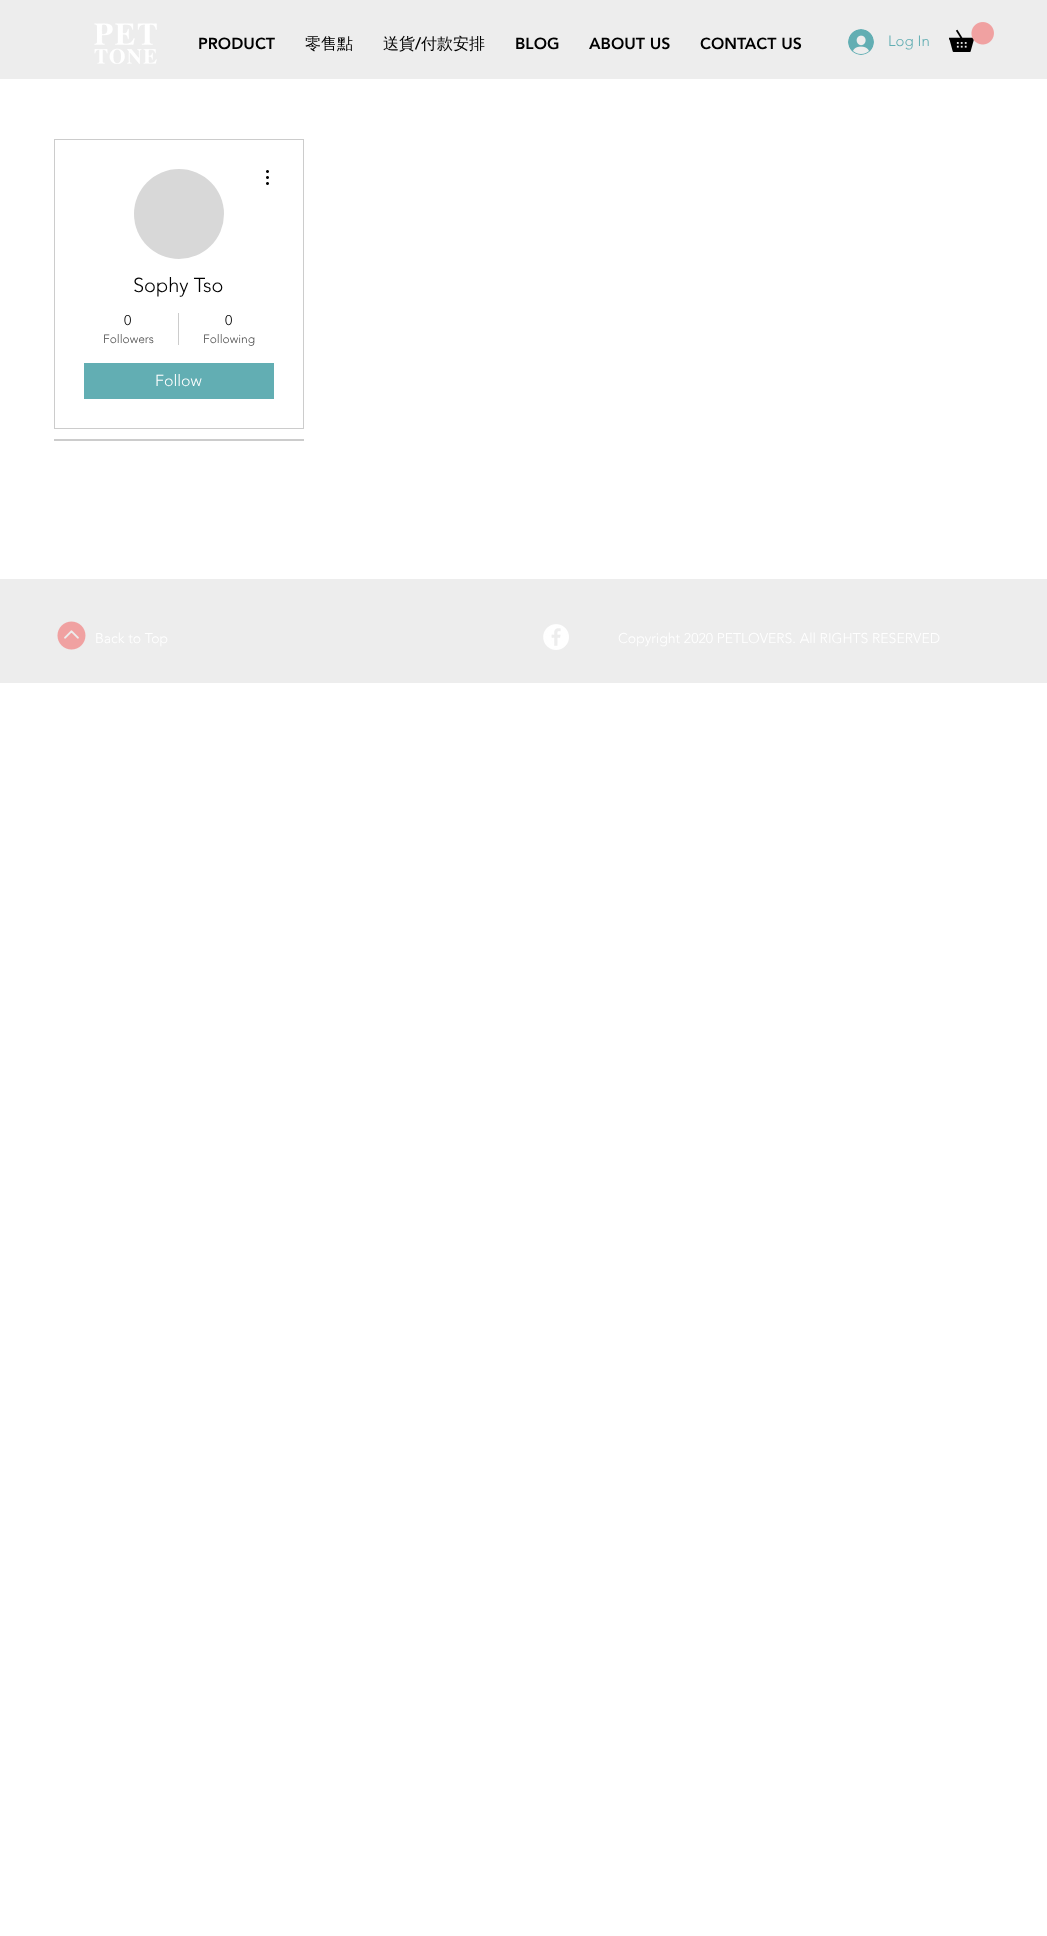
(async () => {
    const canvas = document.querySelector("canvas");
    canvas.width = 1047;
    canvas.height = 1936;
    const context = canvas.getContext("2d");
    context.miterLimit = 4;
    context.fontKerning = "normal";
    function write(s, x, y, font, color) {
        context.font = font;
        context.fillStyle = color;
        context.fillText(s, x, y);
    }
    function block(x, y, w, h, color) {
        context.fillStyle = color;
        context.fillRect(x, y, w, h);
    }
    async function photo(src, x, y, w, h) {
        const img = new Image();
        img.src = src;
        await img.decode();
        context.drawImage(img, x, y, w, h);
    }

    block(0, 0, 1047, 1936, "rgb(255, 255, 255)");
    block(0, 0, 1047, 79, "rgb(237, 237, 237)");
    await photo("media/1.png", 94, 23, 63, 41);
    write("PRODUCT", 198, 49, "900 16px 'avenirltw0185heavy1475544'", "rgb(0, 0, 0)");
    write("零售點", 305, 49, "500 16px WenQuanYi Zen Hei", "rgb(0, 0, 0)");
    write("送貨", 383, 49, "500 16px WenQuanYi Zen Hei", "rgb(0, 0, 0)");
    write("/", 415, 49, "900 16px 'avenirltw0185heavy1475544'", "rgb(0, 0, 0)");
    write("付款安排", 421, 49, "500 16px WenQuanYi Zen Hei", "rgb(0, 0, 0)");
    write("BLOG", 515, 49, "900 16px 'avenirltw0185heavy1475544'", "rgb(0, 0, 0)");
    write("ABOUT US", 589, 49, "900 16px 'avenirltw0185heavy1475544'", "rgb(0, 0, 0)");
    write("CONTACT US", 700, 49, "900 16px 'avenirltw0185heavy1475544'", "rgb(0, 0, 0)");
    await photo("media/2.png", 848, 29, 26, 26);
    write("Log In", 888, 46, "300 15px 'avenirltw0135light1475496'", "rgb(98, 174, 179)");
    await photo("media/3.png", 949, 22, 45, 30);
    context.strokeStyle = "rgb(204, 204, 204)";
    context.strokeRect(54.5, 139.5, 249, 289);
    context.fillStyle = "rgb(216, 216, 216)";
    context.beginPath();
    context.arc(179, 214, 45, 0, Math.PI * 2);
    context.fill();
    await photo("media/4.png", 266, 170, 3, 15);
    write("Sophy Tso", 133, 292, "300 20px 'avenirltw0135light1475496'", "rgb(0, 0, 0)");
    write("0", 124, 325, "300 14px 'avenirltw0135light1475496'", "rgb(0, 0, 0)");
    write("Followers", 103, 343, "300 12px 'avenirltw0135light1475496'", "rgb(77, 77, 77)");
    block(178, 313, 1, 32, "rgb(204, 204, 204)");
    write("0", 225, 325, "300 14px 'avenirltw0135light1475496'", "rgb(0, 0, 0)");
    write("Following", 203, 343, "300 12px 'avenirltw0135light1475496'", "rgb(77, 77, 77)");
    block(84, 363, 190, 36, "rgb(98, 174, 179)");
    write("Follow", 155, 386, "300 16px 'avenirltw0135light1475496'", "rgb(255, 255, 255)");
    block(54, 439, 250, 2, "rgb(204, 204, 204)");
    block(0, 579, 1047, 104, "rgb(237, 237, 237)");
    await photo("media/5.png", 57, 621, 29, 29);
    write("Back to Top", 95, 643, "300 14px 'avenirltw0135light1475496'", "rgb(255, 255, 255)");
    await photo("media/6.png", 543, 624, 26, 26);
    write("Copyright 2020 PETLOVERS. All RIGHTS RESERVED", 618, 643, "300 14px 'avenirltw0135light1475496'", "rgb(255, 255, 255)");
})();
